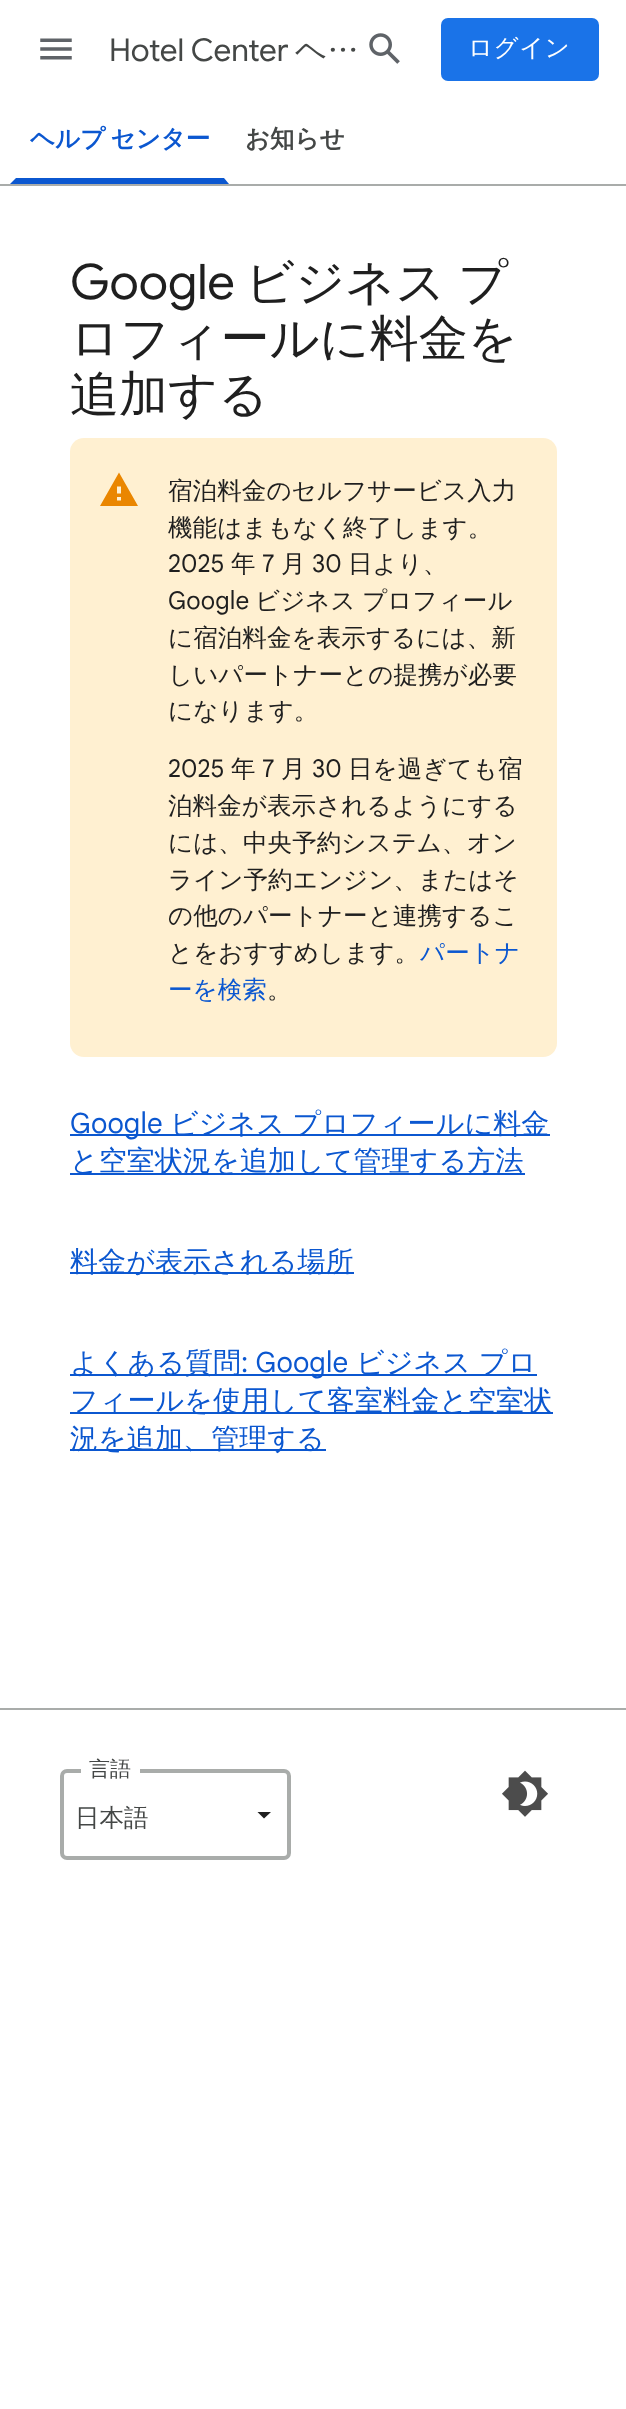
(async () => {
    const canvas = document.querySelector("canvas");
    canvas.width = 626;
    canvas.height = 2409;
    const context = canvas.getContext("2d");
    context.miterLimit = 4;
    context.fontKerning = "normal";
    function write(s, x, y, font, color) {
        context.font = font;
        context.fillStyle = color;
        context.fillText(s, x, y);
    }
    function block(x, y, w, h, color) {
        context.fillStyle = color;
        context.fillRect(x, y, w, h);
    }
    function card(x, y, w, h, r, color) {
        context.fillStyle = color;
        context.beginPath();
        context.roundRect(x, y, w, h, r);
        context.fill();
    }
    async function photo(src, x, y, w, h) {
        const img = new Image();
        img.src = src;
        await img.decode();
        context.drawImage(img, x, y, w, h);
    }

    block(0, 0, 626, 2409, "rgb(255, 255, 255)");
    await photo("media/1.png", 40, 38, 32, 22);
    write("Hotel Center", 109, 61, "31.5px Google Sans", "rgb(68, 71, 70)");
    write("ヘ…", 295, 61, "500 31.5px WenQuanYi Zen Hei", "rgb(68, 71, 70)");
    await photo("media/2.png", 369, 33, 31, 31);
    card(441, 18, 158, 63, 7, "rgb(26, 115, 232)");
    context.letterSpacing = "0.5px";
    write("ログイン", 468, 56, "500 24.5px WenQuanYi Zen Hei", "rgb(255, 255, 255)");
    block(0, 184, 626, 2, "rgb(169, 172, 170)");
    context.fillStyle = "rgb(11, 87, 208)";
    context.beginPath();
    context.moveTo(229, 184);
    context.lineTo(10, 184);
    context.lineTo(16, 178);
    context.lineTo(224, 178);
    context.closePath();
    context.fill();
    context.letterSpacing = "0px";
    context.wordSpacing = "-2px";
    write("ヘルプ センター", 30, 147, "bold 24.5px WenQuanYi Zen Hei", "rgb(11, 87, 208)");
    context.wordSpacing = "0px";
    write("お知らせ", 245, 147, "bold 24.5px WenQuanYi Zen Hei", "rgb(68, 71, 70)");
    write("Google", 70, 299, "49px Google Sans", "rgb(31, 31, 31)");
    context.wordSpacing = "-2px";
    write("ビジネス プ", 245, 299, "500 49px WenQuanYi Zen Hei", "rgb(31, 31, 31)");
    context.wordSpacing = "0px";
    write("ロフィールに料金を", 70, 355, "500 49px WenQuanYi Zen Hei", "rgb(31, 31, 31)");
    write("追加する", 70, 411, "500 49px WenQuanYi Zen Hei", "rgb(31, 31, 31)");
    card(70, 438, 487, 619, 14, "rgb(255, 240, 209)");
    context.fillStyle = "rgb(234, 134, 0)";
    context.beginPath();
    context.moveTo(100, 506);
    context.lineTo(138, 506);
    context.lineTo(119, 472.5);
    context.closePath();
    context.moveTo(121, 500.5);
    context.lineTo(117, 500.5);
    context.lineTo(117, 497);
    context.lineTo(121, 497);
    context.closePath();
    context.moveTo(121, 493.5);
    context.lineTo(117, 493.5);
    context.lineTo(117, 486.5);
    context.lineTo(121, 486.5);
    context.closePath();
    context.fill();
    context.letterSpacing = "0.1px";
    write("宿泊料金のセルフサービス入力", 168, 499, "500 24.5px WenQuanYi Zen Hei", "rgb(31, 31, 31)");
    write("機能はまもなく終了します。", 168, 536, "500 24.5px WenQuanYi Zen Hei", "rgb(31, 31, 31)");
    write("2025", 168, 572, "24.5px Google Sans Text", "rgb(31, 31, 31)");
    write("年", 231, 572, "500 24.5px WenQuanYi Zen Hei", "rgb(31, 31, 31)");
    write("7", 262, 572, "24.5px Google Sans Text", "rgb(31, 31, 31)");
    write("月", 281, 572, "500 24.5px WenQuanYi Zen Hei", "rgb(31, 31, 31)");
    write("30", 312, 572, "24.5px Google Sans Text", "rgb(31, 31, 31)");
    write("日より、", 348, 572, "500 24.5px WenQuanYi Zen Hei", "rgb(31, 31, 31)");
    write("Google", 168, 609, "24.5px Google Sans Text", "rgb(31, 31, 31)");
    context.wordSpacing = "-1px";
    write("ビジネス プロフィール", 255, 609, "500 24.5px WenQuanYi Zen Hei", "rgb(31, 31, 31)");
    context.wordSpacing = "0px";
    write("に宿泊料金を表示するには、新", 168, 646, "500 24.5px WenQuanYi Zen Hei", "rgb(31, 31, 31)");
    write("しいパートナーとの提携が必要", 168, 683, "500 24.5px WenQuanYi Zen Hei", "rgb(31, 31, 31)");
    write("になります。", 168, 719, "500 24.5px WenQuanYi Zen Hei", "rgb(31, 31, 31)");
    write("2025", 168, 777, "24.5px Google Sans Text", "rgb(31, 31, 31)");
    write("年", 231, 777, "500 24.5px WenQuanYi Zen Hei", "rgb(31, 31, 31)");
    write("7", 262, 777, "24.5px Google Sans Text", "rgb(31, 31, 31)");
    write("月", 281, 777, "500 24.5px WenQuanYi Zen Hei", "rgb(31, 31, 31)");
    write("30", 312, 777, "24.5px Google Sans Text", "rgb(31, 31, 31)");
    write("日を過ぎても宿", 348, 777, "500 24.5px WenQuanYi Zen Hei", "rgb(31, 31, 31)");
    write("泊料金が表示されるようにする", 168, 814, "500 24.5px WenQuanYi Zen Hei", "rgb(31, 31, 31)");
    write("には、中央予約システム、オン", 168, 851, "500 24.5px WenQuanYi Zen Hei", "rgb(31, 31, 31)");
    write("ライン予約エンジン、またはそ", 168, 888, "500 24.5px WenQuanYi Zen Hei", "rgb(31, 31, 31)");
    write("の他のパートナーと連携するこ", 168, 924, "500 24.5px WenQuanYi Zen Hei", "rgb(31, 31, 31)");
    write("とをおすすめします。", 168, 961, "500 24.5px WenQuanYi Zen Hei", "rgb(31, 31, 31)");
    write("パートナ", 420, 961, "500 24.5px WenQuanYi Zen Hei", "rgb(11, 87, 208)");
    write("ーを検索", 168, 998, "500 24.5px WenQuanYi Zen Hei", "rgb(11, 87, 208)");
    write("。", 267, 998, "500 24.5px WenQuanYi Zen Hei", "rgb(31, 31, 31)");
    block(70, 1134, 480, 2, "rgb(11, 87, 208)");
    write("Google", 70, 1133, "28px Google Sans Text", "rgb(11, 87, 208)");
    context.wordSpacing = "-1px";
    write("ビジネス プロフィールに料金", 170, 1133, "500 28px WenQuanYi Zen Hei", "rgb(11, 87, 208)");
    block(70, 1173, 455, 2, "rgb(11, 87, 208)");
    context.wordSpacing = "0px";
    write("と空室状況を追加して管理する方法", 70, 1170, "500 28px WenQuanYi Zen Hei", "rgb(11, 87, 208)");
    block(70, 1272, 284, 2, "rgb(11, 87, 208)");
    write("料金が表示される場所", 70, 1271, "500 28px WenQuanYi Zen Hei", "rgb(11, 87, 208)");
    block(70, 1374, 467, 2, "rgb(11, 87, 208)");
    write("よくある質問", 70, 1372, "500 28px WenQuanYi Zen Hei", "rgb(11, 87, 208)");
    write(": Google", 241, 1372, "28px Google Sans Text", "rgb(11, 87, 208)");
    write("ビジネス", 356, 1372, "500 28px WenQuanYi Zen Hei", "rgb(11, 87, 208)");
    write("プロ", 479, 1372, "500 28px WenQuanYi Zen Hei", "rgb(11, 87, 208)");
    block(70, 1412, 483, 2, "rgb(11, 87, 208)");
    write("フィールを使用して客室料金と空室状", 70, 1410, "500 28px WenQuanYi Zen Hei", "rgb(11, 87, 208)");
    block(70, 1449, 256, 2, "rgb(11, 87, 208)");
    write("況を追加、管理する", 70, 1448, "500 28px WenQuanYi Zen Hei", "rgb(11, 87, 208)");
    block(0, 1708, 626, 2, "rgb(169, 172, 170)");
    context.beginPath();
    context.roundRect(62, 1771, 227, 87, 5);
    context.strokeStyle = "rgb(169, 172, 170)";
    context.lineWidth = 4;
    context.stroke();
    block(81, 1769, 59, 4, "rgb(255, 255, 255)");
    context.letterSpacing = "0px";
    write("言語", 89, 1776, "500 21px WenQuanYi Zen Hei", "rgb(68, 71, 70)");
    write("日本語", 75, 1826, "500 24.5px WenQuanYi Zen Hei", "rgb(68, 71, 70)");
    context.fillStyle = "rgb(31, 31, 31)";
    context.beginPath();
    context.moveTo(257.5, 1812);
    context.lineTo(264, 1818.5);
    context.lineTo(271, 1812);
    context.closePath();
    context.fill();
    await photo("media/3.png", 502, 1770, 46, 47);
})();
